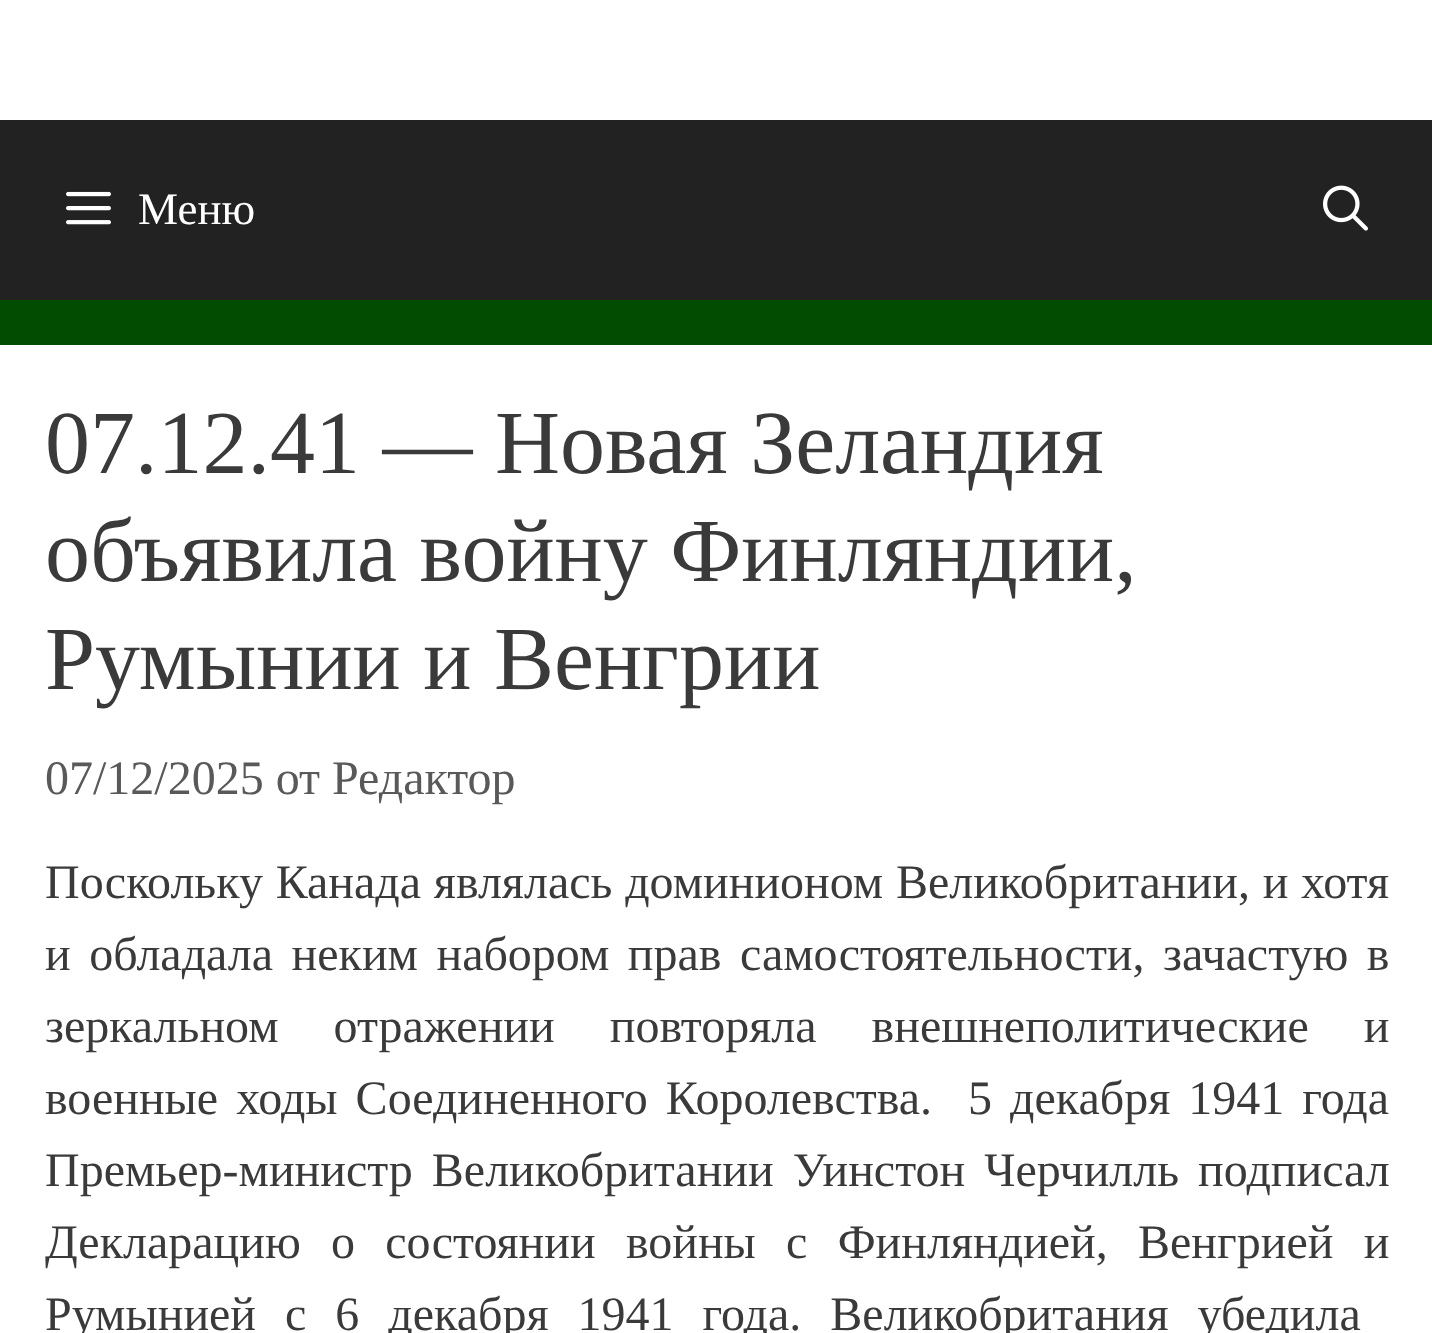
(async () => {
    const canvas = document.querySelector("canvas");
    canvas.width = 1432;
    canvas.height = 1333;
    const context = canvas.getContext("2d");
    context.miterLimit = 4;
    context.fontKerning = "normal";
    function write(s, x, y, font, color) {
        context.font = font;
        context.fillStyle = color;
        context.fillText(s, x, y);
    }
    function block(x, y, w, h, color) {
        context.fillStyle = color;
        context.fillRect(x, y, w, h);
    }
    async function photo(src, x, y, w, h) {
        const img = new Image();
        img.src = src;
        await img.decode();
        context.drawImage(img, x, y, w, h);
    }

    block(0, 0, 1432, 1333, "rgb(1, 76, 0)");
    block(0, 0, 1432, 120, "rgb(255, 255, 255)");
    block(0, 120, 1432, 180, "rgb(34, 34, 34)");
    await photo("media/1.png", 66, 191, 45, 34);
    write("Меню", 138, 224, "45px Liberation Serif", "rgb(255, 255, 255)");
    await photo("media/2.png", 1323, 185, 45, 46);
    block(0, 345, 1432, 988, "rgb(255, 255, 255)");
    write("07.12.41 — Новая Зеландия", 45, 473, "90px Liberation Serif", "rgb(58, 58, 58)");
    write("объявила войну Финляндии,", 45, 581, "90px Liberation Serif", "rgb(58, 58, 58)");
    write("Румынии и Венгрии", 45, 689, "90px Liberation Serif", "rgb(58, 58, 58)");
    write("07/12/2025 от Редактор", 45, 794, "48px Liberation Serif", "rgb(89, 89, 89)");
    context.wordSpacing = "0.75px";
    write("Поскольку Канада являлась доминионом Великобритании, и хотя", 45, 898, "48px Liberation Serif", "rgb(58, 58, 58)");
    context.wordSpacing = "6.5px";
    write("и обладала неким набором прав самостоятельности, зачастую в", 45, 970, "48px Liberation Serif", "rgb(58, 58, 58)");
    context.wordSpacing = "43px";
    write("зеркальном отражении повторяла внешнеполитические и", 45, 1042, "48px Liberation Serif", "rgb(58, 58, 58)");
    context.wordSpacing = "6px";
    write("военные ходы Соединенного Королевства.  5 декабря 1941 года", 45, 1114, "48px Liberation Serif", "rgb(58, 58, 58)");
    context.wordSpacing = "7px";
    write("Премьер-министр Великобритании Уинстон Черчилль подписал", 45, 1186, "48px Liberation Serif", "rgb(58, 58, 58)");
    context.wordSpacing = "18.25px";
    write("Декларацию о состоянии войны с Финляндией, Венгрией и", 45, 1258, "48px Liberation Serif", "rgb(58, 58, 58)");
    context.wordSpacing = "17px";
    write("Румынией с 6 декабря 1941 года. Великобритания убедила", 45, 1330, "48px Liberation Serif", "rgb(58, 58, 58)");
})();
